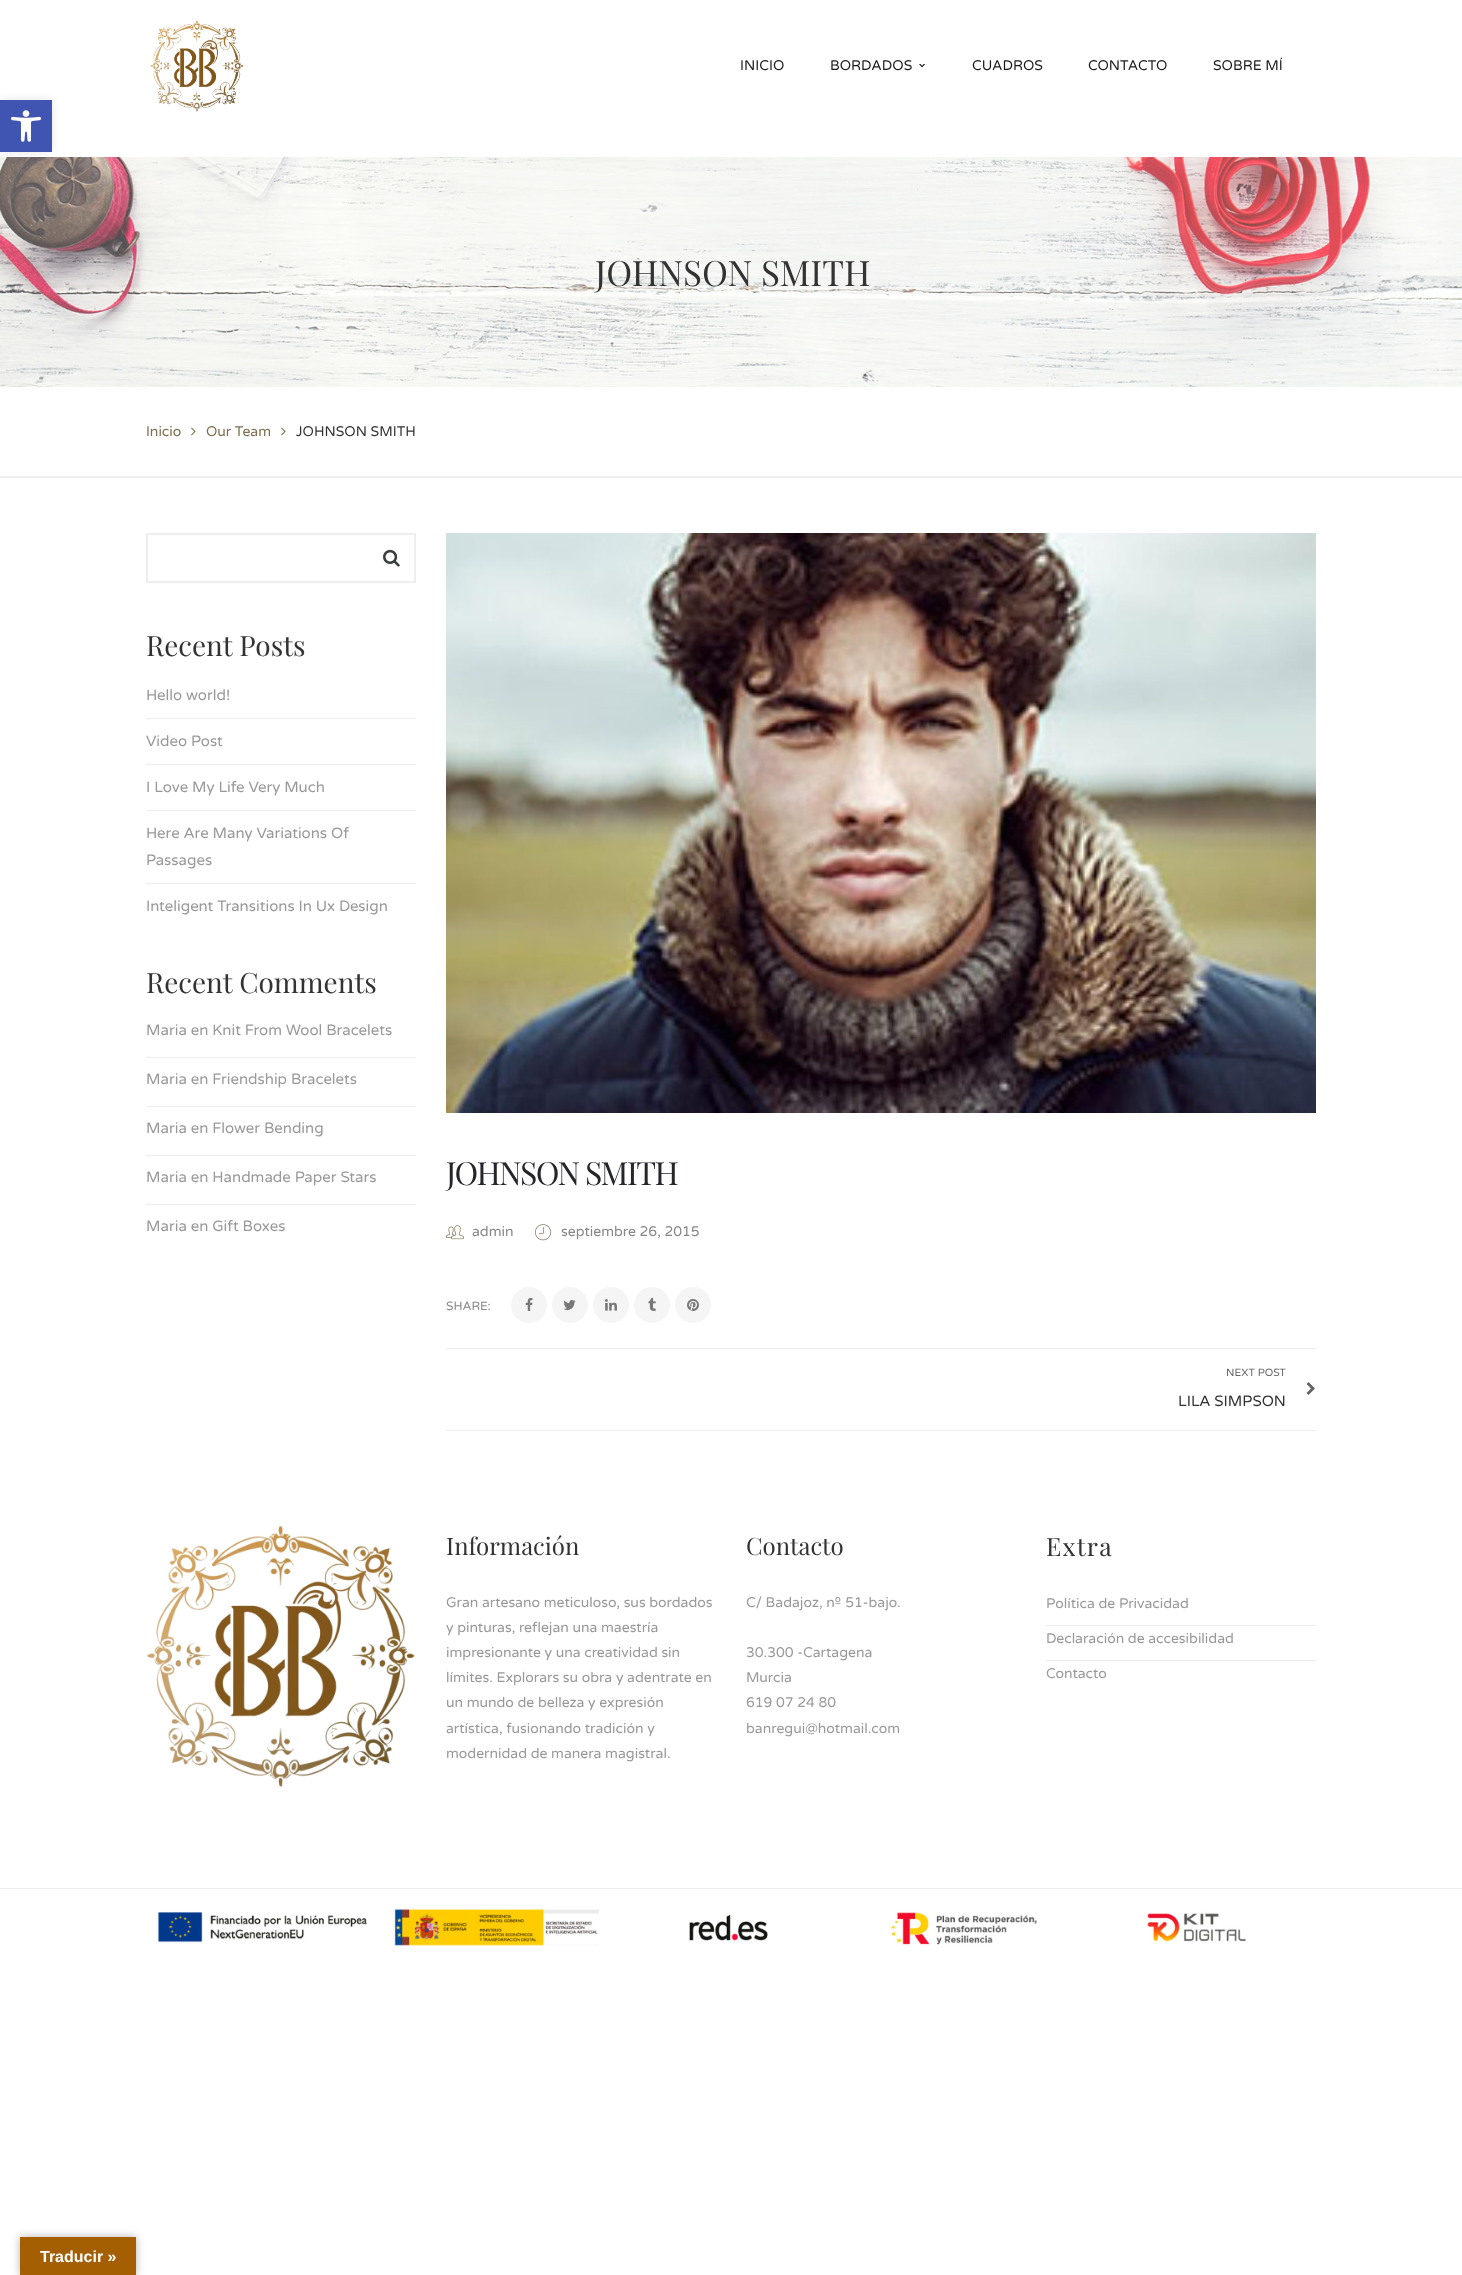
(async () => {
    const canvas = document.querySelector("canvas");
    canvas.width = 1462;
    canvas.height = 2275;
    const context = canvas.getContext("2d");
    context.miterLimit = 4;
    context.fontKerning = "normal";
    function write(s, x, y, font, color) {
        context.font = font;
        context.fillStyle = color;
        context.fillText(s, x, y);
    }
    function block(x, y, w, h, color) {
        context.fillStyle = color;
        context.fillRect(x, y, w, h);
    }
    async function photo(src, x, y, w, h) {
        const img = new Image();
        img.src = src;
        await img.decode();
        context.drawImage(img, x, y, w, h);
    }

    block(0, 0, 1462, 2275, "rgb(255, 255, 255)");
    await photo("media/3.png", 0, 157, 1462, 230);
    context.fillStyle = "rgba(0, 0, 0, 0.1)";
    context.filter = "blur(5px)";
    context.beginPath();
    context.rect(0, 100, 52, 52);
    context.fill();
    context.filter = "none";
    block(0, 100, 52, 52, "rgb(64, 84, 178)");
    await photo("media/1.png", 11, 110, 30, 32);
    await photo("media/2.png", 150, 20, 94, 92);
    write("INICIO", 740, 70, "14px Varela Round", "rgb(25, 25, 25)");
    write("BORDADOS", 830, 70, "14px Varela Round", "rgb(25, 25, 25)");
    context.font = "bold 14px DejaVu Sans Mono";
    context.save();
    context.translate(918, 61);
    context.rotate(90 * Math.PI / 180);
    context.fillText("›", 0, 0);
    context.restore();
    write("CUADROS", 972, 70, "14px Varela Round", "rgb(25, 25, 25)");
    write("CONTACTO", 1088, 70, "14px Varela Round", "rgb(25, 25, 25)");
    write("SOBRE MÍ", 1213, 70, "14px Varela Round", "rgb(25, 25, 25)");
    write("JOHNSON SMITH", 595, 286, "35px Playfair Display", "rgb(51, 51, 51)");
    block(0, 476, 1462, 2, "rgb(238, 238, 238)");
    write("Inicio", 146, 436, "14px Varela Round", "rgb(126, 109, 78)");
    await photo("media/4.png", 191, 427, 5, 9);
    write("Our Team", 206, 436, "14px Varela Round", "rgb(126, 109, 78)");
    await photo("media/4.png", 281, 427, 5, 9);
    write("JOHNSON SMITH", 296, 436, "14px Varela Round", "rgb(51, 51, 51)");
    context.strokeStyle = "rgb(238, 238, 238)";
    context.lineWidth = 2;
    context.strokeRect(147, 534, 268, 48);
    await photo("media/5.png", 383, 549, 17, 18);
    write("Recent Posts", 146, 656, "28px Playfair Display", "rgb(51, 51, 51)");
    write("Hello world!", 146, 700, "15px Varela Round", "rgb(153, 153, 153)");
    block(146, 718, 270, 1, "rgb(238, 238, 238)");
    write("Video Post", 146, 746, "15px Varela Round", "rgb(153, 153, 153)");
    block(146, 764, 270, 1, "rgb(238, 238, 238)");
    write("I Love My Life Very Much", 146, 792, "15px Varela Round", "rgb(153, 153, 153)");
    block(146, 810, 270, 1, "rgb(238, 238, 238)");
    write("Here Are Many Variations Of", 146, 838, "15px Varela Round", "rgb(153, 153, 153)");
    write("Passages", 146, 865, "15px Varela Round", "rgb(153, 153, 153)");
    block(146, 883, 270, 1, "rgb(238, 238, 238)");
    write("Inteligent Transitions In Ux Design", 146, 911, "15px Varela Round", "rgb(153, 153, 153)");
    write("Recent Comments", 146, 993, "28px Playfair Display", "rgb(51, 51, 51)");
    write("Maria en Knit From Wool Bracelets", 146, 1035, "15px Varela Round", "rgb(153, 153, 153)");
    block(146, 1057, 270, 1, "rgb(238, 238, 238)");
    write("Maria en Friendship Bracelets", 146, 1084, "15px Varela Round", "rgb(153, 153, 153)");
    block(146, 1106, 270, 1, "rgb(238, 238, 238)");
    write("Maria en Flower Bending", 146, 1133, "15px Varela Round", "rgb(153, 153, 153)");
    block(146, 1155, 270, 1, "rgb(238, 238, 238)");
    write("Maria en Handmade Paper Stars", 146, 1182, "15px Varela Round", "rgb(153, 153, 153)");
    block(146, 1204, 270, 1, "rgb(238, 238, 238)");
    write("Maria en Gift Boxes", 146, 1231, "15px Varela Round", "rgb(153, 153, 153)");
    await photo("media/6.png", 446, 533, 870, 580);
    block(446, 1348, 870, 1, "rgb(238, 238, 238)");
    context.letterSpacing = "-1.6px";
    write("JOHNSON SMITH", 446, 1185, "32px Playfair Display", "rgb(37, 38, 44)");
    await photo("media/7.png", 446, 1225, 18, 15);
    context.letterSpacing = "0px";
    write("admin", 472, 1236, "14px Varela Round", "rgb(135, 135, 135)");
    await photo("media/8.png", 535, 1224, 16, 17);
    write("septiembre 26, 2015", 561, 1236, "14px Varela Round", "rgb(135, 135, 135)");
    write("SHARE:", 446, 1310, "12px Varela Round", "rgb(135, 135, 135)");
    context.fillStyle = "rgb(245, 245, 245)";
    context.beginPath();
    context.arc(529, 1305, 18, 0, Math.PI * 2);
    context.fill();
    await photo("media/9.png", 525, 1298, 8, 13);
    context.beginPath();
    context.arc(570, 1305, 18, 0, Math.PI * 2);
    context.fill();
    await photo("media/10.png", 563, 1300, 13, 10);
    context.beginPath();
    context.arc(611, 1305, 18, 0, Math.PI * 2);
    context.fill();
    await photo("media/11.png", 605, 1299, 12, 12);
    context.beginPath();
    context.arc(652, 1305, 18, 0, Math.PI * 2);
    context.fill();
    await photo("media/12.png", 648, 1298, 8, 13);
    context.beginPath();
    context.arc(693, 1305, 18, 0, Math.PI * 2);
    context.fill();
    await photo("media/13.png", 687, 1299, 12, 12);
    block(446, 1430, 870, 1, "rgb(238, 238, 238)");
    write("NEXT POST", 1226, 1376, "10.5px Varela Round", "rgb(99, 99, 99)");
    write("LILA SIMPSON", 1178, 1406, "15px Varela Round", "rgb(51, 51, 51)");
    await photo("media/14.png", 1306, 1382, 9, 13);
    await photo("media/15.png", 147, 1525, 268, 262);
    write("Información", 446, 1555, "24px Playfair Display", "rgb(51, 51, 51)");
    write("Gran artesano meticuloso, sus bordados", 446, 1607, "14px Varela Round", "rgb(153, 153, 153)");
    write("y pinturas, reflejan una maestría", 446, 1632, "14px Varela Round", "rgb(153, 153, 153)");
    write("impresionante y una creatividad sin", 446, 1657, "14px Varela Round", "rgb(153, 153, 153)");
    write("límites. Explorars su obra y adentrate en", 446, 1682, "14px Varela Round", "rgb(153, 153, 153)");
    write("un mundo de belleza y expresión", 446, 1707, "14px Varela Round", "rgb(153, 153, 153)");
    write("artística, fusionando tradición y", 446, 1733, "14px Varela Round", "rgb(153, 153, 153)");
    write("modernidad de manera magistral.", 446, 1758, "14px Varela Round", "rgb(153, 153, 153)");
    write("Contacto", 746, 1555, "24px Playfair Display", "rgb(51, 51, 51)");
    write("C/ Badajoz, nº 51-bajo.", 746, 1607, "14px Varela Round", "rgb(153, 153, 153)");
    write("30.300 -Cartagena", 746, 1657, "14px Varela Round", "rgb(153, 153, 153)");
    write("Murcia", 746, 1682, "14px Varela Round", "rgb(153, 153, 153)");
    write("619 07 24 80", 746, 1707, "14px Varela Round", "rgb(153, 153, 153)");
    write("banregui@hotmail.com", 746, 1733, "14px Varela Round", "rgb(153, 153, 153)");
    context.letterSpacing = "1.25px";
    write("Extra", 1046, 1556, "25px Playfair Display", "rgb(51, 51, 51)");
    context.letterSpacing = "0px";
    write("Política de Privacidad", 1046, 1608, "14px Varela Round", "rgb(153, 153, 153)");
    block(1046, 1625, 270, 1, "rgb(237, 237, 237)");
    write("Declaración de accesibilidad", 1046, 1643, "14px Varela Round", "rgb(153, 153, 153)");
    block(1046, 1660, 270, 1, "rgb(237, 237, 237)");
    write("Contacto", 1046, 1678, "14px Varela Round", "rgb(153, 153, 153)");
    block(0, 1888, 1462, 1, "rgb(237, 237, 237)");
    await photo("media/16.png", 156, 1911, 212, 32);
    await photo("media/17.png", 393, 1908, 206, 38);
    await photo("media/18.png", 689, 1914, 79, 28);
    await photo("media/19.png", 889, 1911, 148, 34);
    await photo("media/20.png", 1147, 1911, 99, 31);
    context.fillStyle = "rgba(0, 0, 0, 0.3)";
    context.filter = "blur(4.5px)";
    context.beginPath();
    context.rect(20, 2237, 116, 38);
    context.fill();
    context.filter = "none";
    block(20, 2237, 116, 38, "rgb(163, 95, 2)");
    write("Traducir »", 40, 2262, "bold 16px Liberation Sans", "rgb(255, 255, 255)");
})();
